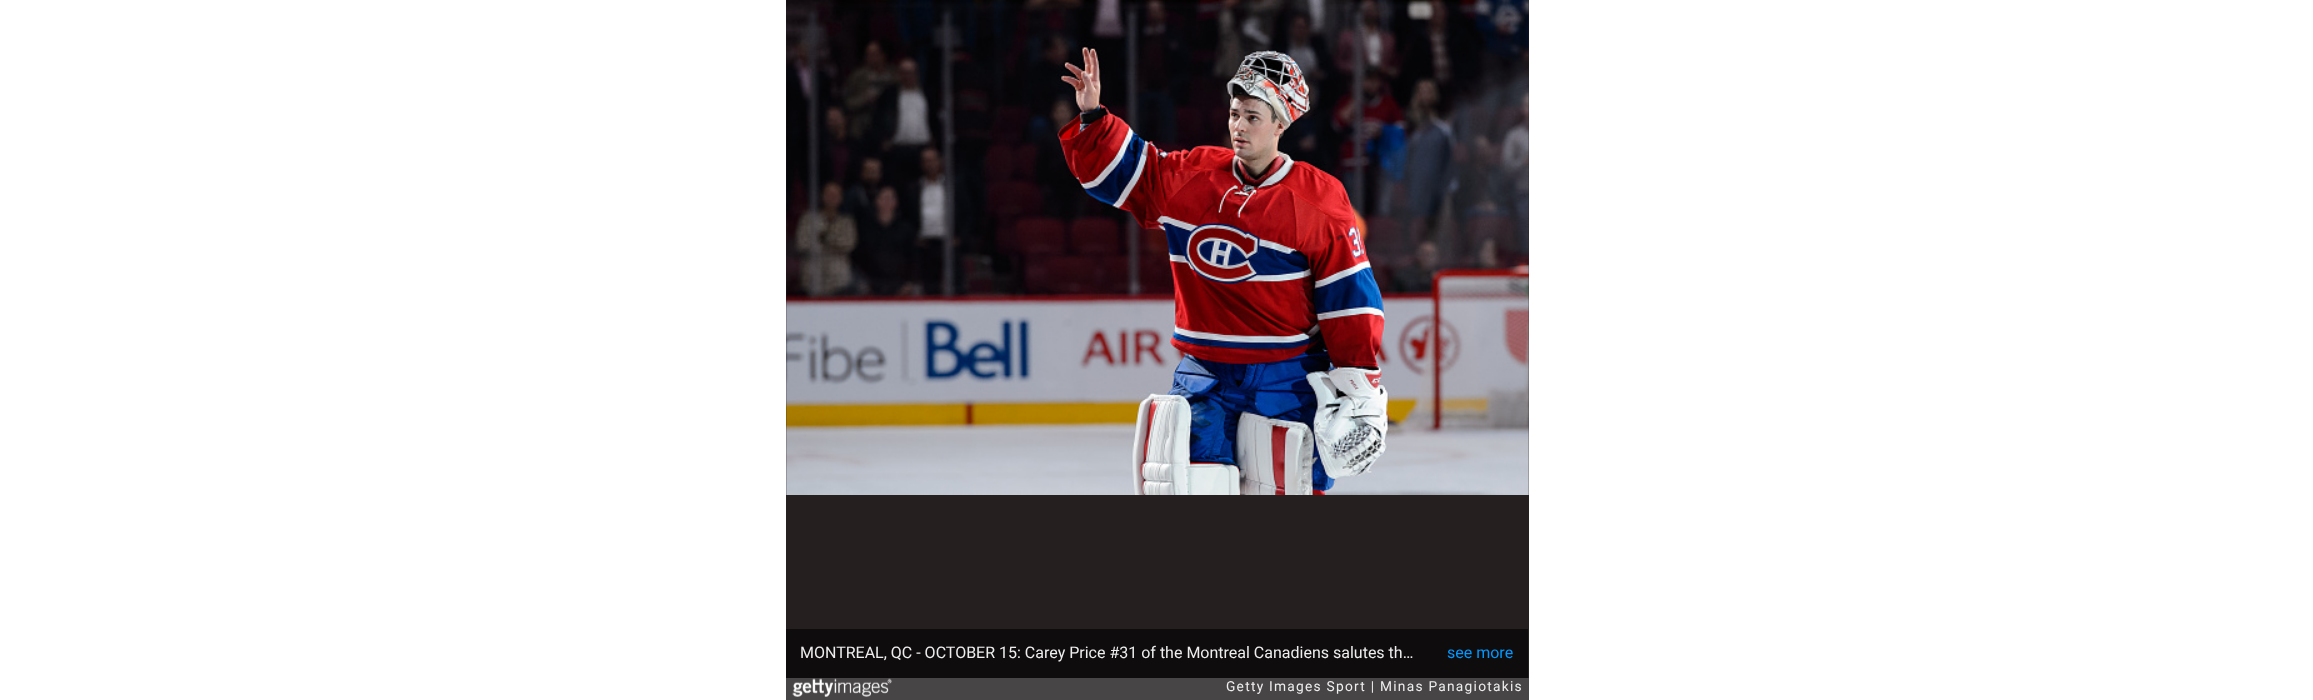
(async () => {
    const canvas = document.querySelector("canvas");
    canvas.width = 2313;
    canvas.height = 700;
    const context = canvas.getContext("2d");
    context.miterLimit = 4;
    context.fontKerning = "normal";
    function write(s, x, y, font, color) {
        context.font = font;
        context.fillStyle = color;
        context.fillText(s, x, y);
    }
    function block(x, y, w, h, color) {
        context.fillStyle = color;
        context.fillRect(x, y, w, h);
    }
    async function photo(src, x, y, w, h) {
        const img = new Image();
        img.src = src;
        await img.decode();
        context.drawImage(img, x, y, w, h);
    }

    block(0, 0, 2313, 700, "rgb(255, 255, 255)");
    block(786, 0, 743, 678, "rgb(37, 31, 32)");
    await photo("media/1.png", 786, 0, 743, 495);
    block(786, 629, 742, 49, "rgb(15, 12, 13)");
    write("MONTREAL, QC - OCTOBER 15: Carey Price #31 of the Montreal Canadiens salutes th…", 800, 658, "16px Roboto", "rgb(238, 238, 238)");
    write("see more", 1447, 658, "16px Roboto", "rgb(0, 153, 255)");
    block(786, 678, 743, 22, "rgb(71, 69, 69)");
    await photo("media/2.png", 792, 678, 100, 19);
    context.letterSpacing = "1.25px";
    write("Getty Images Sport | Minas Panagiotakis", 1226, 691, "13.75px Roboto", "rgb(238, 238, 238)");
})();
